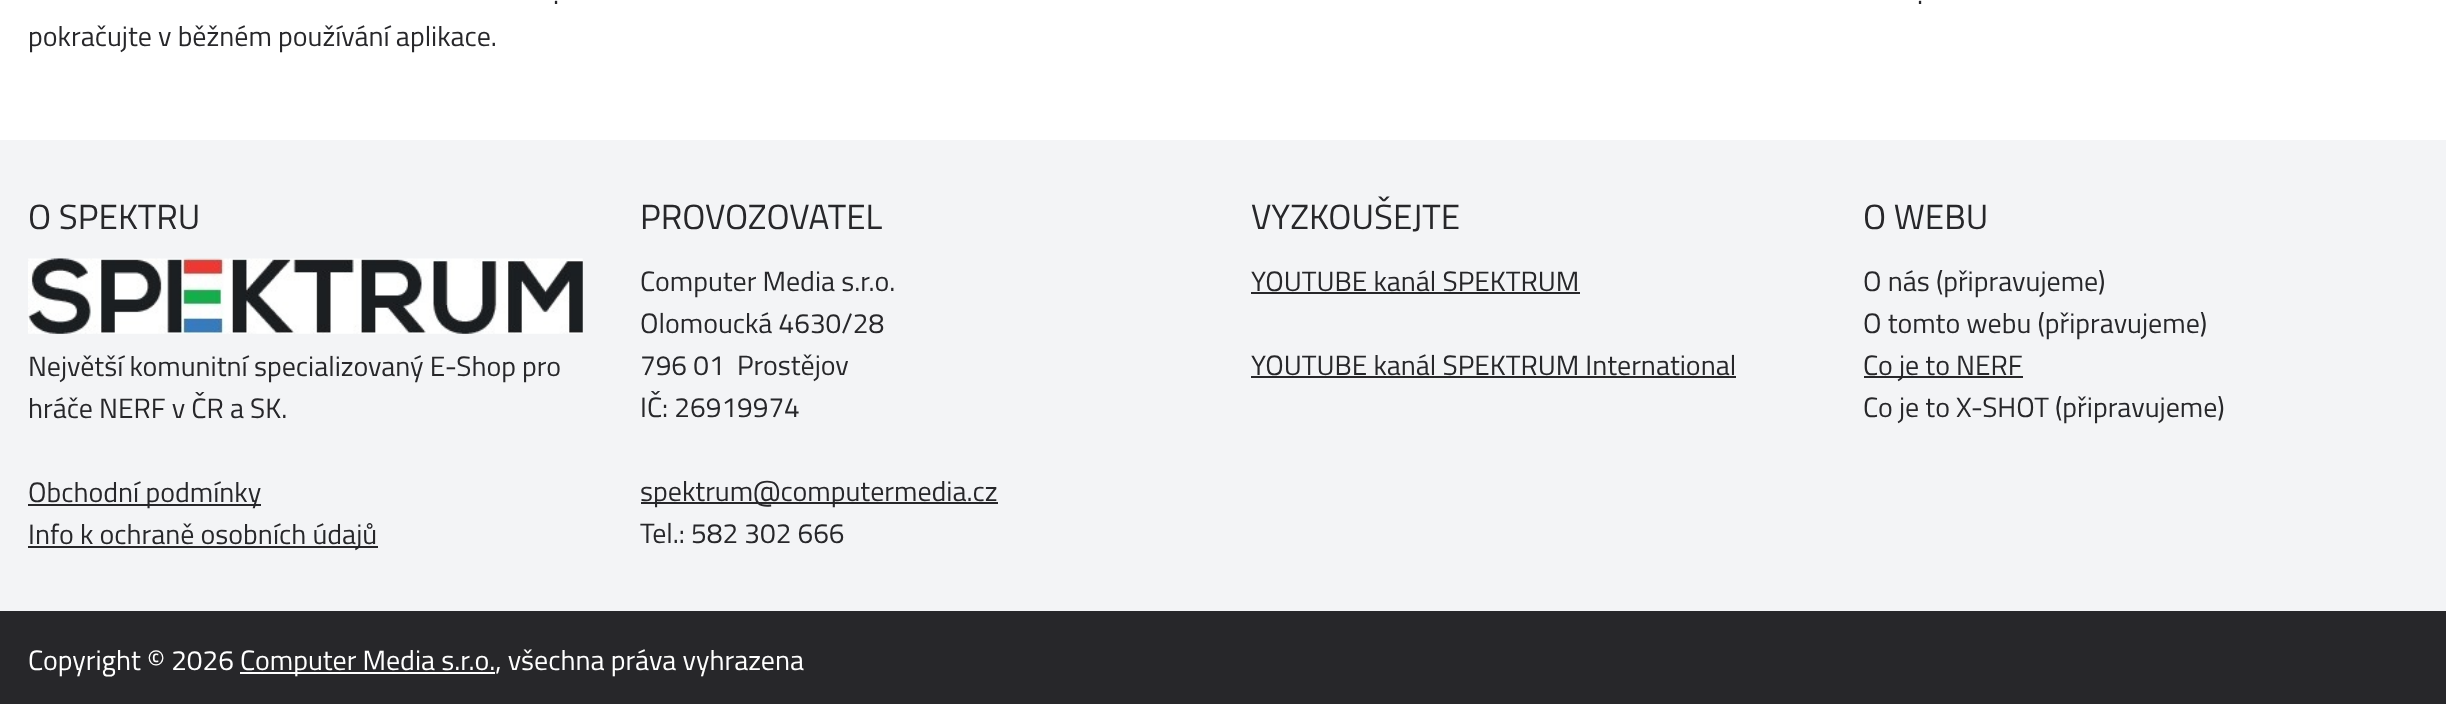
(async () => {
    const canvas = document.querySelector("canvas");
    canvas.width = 2446;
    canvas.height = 704;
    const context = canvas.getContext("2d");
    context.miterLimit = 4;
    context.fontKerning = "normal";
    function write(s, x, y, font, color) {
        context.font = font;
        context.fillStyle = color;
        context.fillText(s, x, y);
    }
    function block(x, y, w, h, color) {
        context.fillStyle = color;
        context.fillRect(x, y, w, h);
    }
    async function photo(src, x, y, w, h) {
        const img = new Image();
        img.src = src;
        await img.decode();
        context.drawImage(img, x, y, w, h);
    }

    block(0, 0, 2446, 704, "rgb(39, 39, 42)");
    block(0, 0, 2446, 140, "rgb(255, 255, 255)");
    write(".", 553, 4, "28px Titillium Web", "rgb(39, 39, 42)");
    write(".", 1917, 4, "28px Titillium Web", "rgb(39, 39, 42)");
    write("pokračujte v běžném používání aplikace.", 28, 46, "28px Titillium Web", "rgb(39, 39, 42)");
    block(0, 140, 2446, 471, "rgb(243, 244, 246)");
    write("O SPEKTRU", 28, 229, "35px Titillium Web", "rgb(39, 39, 42)");
    await photo("media/1.png", 28, 258, 555, 76);
    write("Největší komunitní specializovaný E-Shop pro", 28, 376, "28px Titillium Web", "rgb(39, 39, 42)");
    write("hráče NERF v ČR a SK.", 28, 418, "28px Titillium Web", "rgb(39, 39, 42)");
    block(28, 504, 233, 2, "rgb(39, 39, 42)");
    write("Obchodní podmínky", 28, 502, "28px Titillium Web", "rgb(39, 39, 42)");
    block(28, 546, 350, 2, "rgb(39, 39, 42)");
    write("Info k ochraně osobních údajů", 28, 544, "28px Titillium Web", "rgb(39, 39, 42)");
    write("PROVOZOVATEL", 640, 229, "35px Titillium Web", "rgb(39, 39, 42)");
    write("Computer Media s.r.o.", 640, 291, "28px Titillium Web", "rgb(39, 39, 42)");
    write("Olomoucká 4630/28", 640, 333, "28px Titillium Web", "rgb(39, 39, 42)");
    write("796 01  Prostějov", 640, 375, "28px Titillium Web", "rgb(39, 39, 42)");
    write("IČ: 26919974", 640, 417, "28px Titillium Web", "rgb(39, 39, 42)");
    block(641, 502, 357, 2, "rgb(39, 39, 42)");
    write("spektrum@computermedia.cz", 640, 501, "28px Titillium Web", "rgb(39, 39, 42)");
    write("Tel.: 582 302 666", 640, 543, "28px Titillium Web", "rgb(39, 39, 42)");
    write("VYZKOUŠEJTE", 1251, 229, "35px Titillium Web", "rgb(39, 39, 42)");
    write("YOUTUBE kanál SPEKTRUM", 1251, 291, "28px Titillium Web", "rgb(39, 39, 42)");
    block(1251, 292, 329, 2, "rgb(39, 39, 42)");
    write("YOUTUBE kanál SPEKTRUM International", 1251, 375, "28px Titillium Web", "rgb(39, 39, 42)");
    block(1251, 376, 485, 2, "rgb(39, 39, 42)");
    write("O WEBU", 1863, 229, "35px Titillium Web", "rgb(39, 39, 42)");
    write("O nás (připravujeme)", 1863, 291, "28px Titillium Web", "rgb(39, 39, 42)");
    write("O tomto webu (připravujeme)", 1863, 333, "28px Titillium Web", "rgb(39, 39, 42)");
    block(1864, 376, 159, 2, "rgb(39, 39, 42)");
    write("Co je to NERF", 1863, 375, "28px Titillium Web", "rgb(39, 39, 42)");
    write("Co je to X-SHOT (připravujeme)", 1863, 417, "28px Titillium Web", "rgb(39, 39, 42)");
    write("Copyright © 2026", 28, 670, "28px Titillium Web", "rgb(255, 255, 255)");
    block(240, 672, 255, 2, "rgb(255, 255, 255)");
    write("Computer Media s.r.o., všechna práva vyhrazena", 240, 670, "28px Titillium Web", "rgb(255, 255, 255)");
})();
